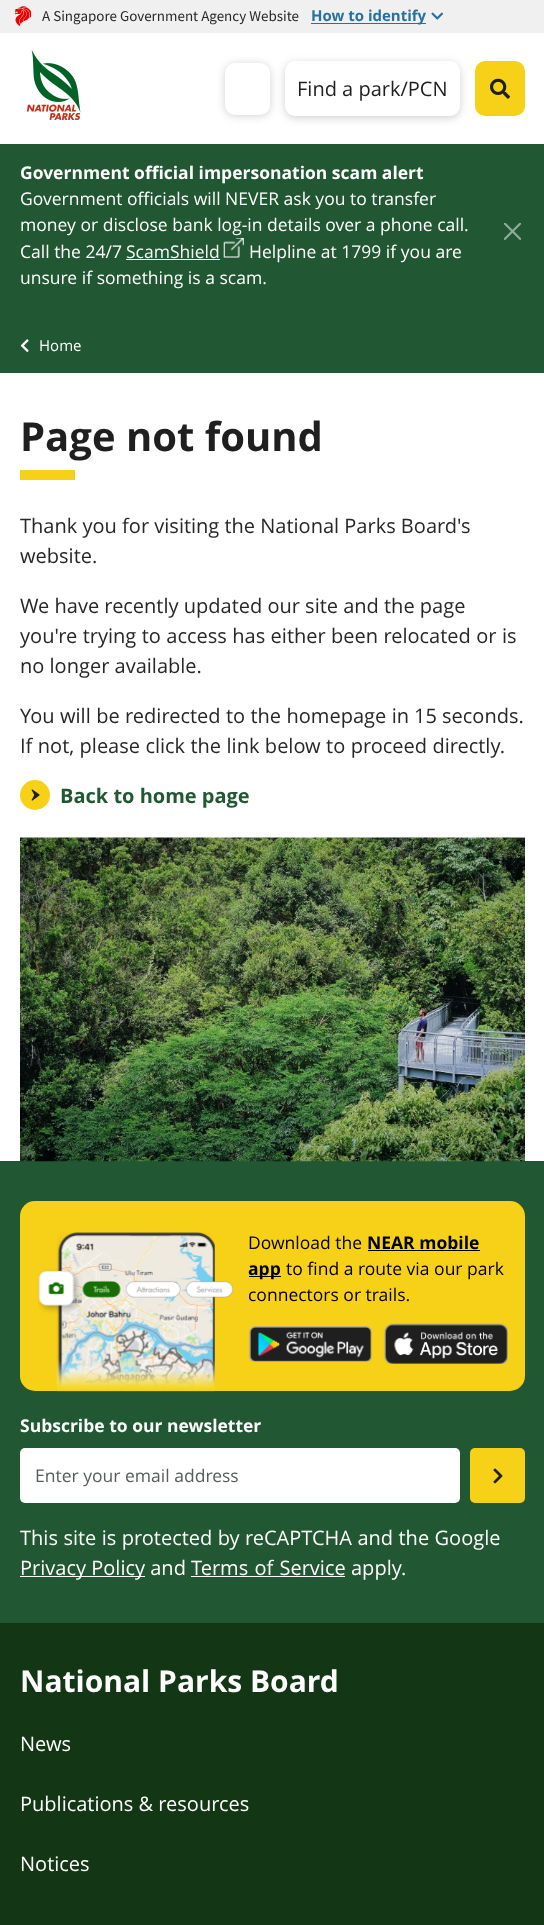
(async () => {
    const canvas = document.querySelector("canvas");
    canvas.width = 544;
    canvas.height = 1925;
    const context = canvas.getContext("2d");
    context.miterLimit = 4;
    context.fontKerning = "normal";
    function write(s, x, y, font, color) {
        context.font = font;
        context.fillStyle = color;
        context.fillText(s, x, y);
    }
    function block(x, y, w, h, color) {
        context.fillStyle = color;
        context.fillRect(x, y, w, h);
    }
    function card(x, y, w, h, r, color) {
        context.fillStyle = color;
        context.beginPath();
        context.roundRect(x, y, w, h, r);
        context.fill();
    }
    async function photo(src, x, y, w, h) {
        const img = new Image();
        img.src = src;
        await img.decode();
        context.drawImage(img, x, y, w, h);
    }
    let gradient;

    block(0, 0, 544, 1925, "rgb(255, 255, 255)");
    block(0, 0, 544, 33, "rgb(240, 240, 240)");
    await photo("media/1.png", 15, 6, 16, 20);
    write("A Singapore Government Agency Website", 42, 21, "15px Source Sans Pro", "rgb(39, 39, 39)");
    block(311, 23, 115, 1, "rgb(39, 112, 160)");
    write("How to identify", 311, 21, "bold 15px Open Sans", "rgb(39, 112, 160)");
    await photo("media/2.png", 431, 12, 13, 8);
    await photo("media/3.png", 26, 50, 55, 71);
    context.fillStyle = "rgba(62, 62, 62, 0.24)";
    context.filter = "blur(4px)";
    context.beginPath();
    context.roundRect(225, 64, 45, 52, 10);
    context.fill();
    context.filter = "none";
    card(225, 63, 45, 52, 10, "rgb(255, 255, 255)");
    context.fillStyle = "rgba(62, 62, 62, 0.24)";
    context.filter = "blur(4px)";
    context.beginPath();
    context.roundRect(285, 63, 175, 55, 10);
    context.fill();
    context.filter = "none";
    card(285, 61, 175, 55, 10, "rgb(255, 255, 255)");
    write("Find a park/PCN", 297, 96, "20px Open Sans", "rgb(31, 31, 31)");
    card(475, 61, 50, 55, 10, "rgb(247, 209, 23)");
    await photo("media/4.png", 490, 78, 20, 21);
    block(0, 144, 544, 229, "rgb(33, 87, 50)");
    write("Government official impersonation scam alert", 20, 179, "bold 17.5px Open Sans", "rgb(255, 255, 255)");
    write("Government officials will NEVER ask you to transfer", 20, 205, "17.5px Open Sans", "rgb(255, 255, 255)");
    write("money or disclose bank log-in details over a phone call.", 20, 231, "17.5px Open Sans", "rgb(255, 255, 255)");
    write("Call the 24/7", 20, 258, "17.5px Open Sans", "rgb(255, 255, 255)");
    write("ScamShield", 126, 258, "17.5px Open Sans", "rgb(246, 246, 246)");
    block(126, 259, 94, 1, "rgb(246, 246, 246)");
    await photo("media/5.png", 223, 238, 21, 20);
    write("Helpline at 1799 if you are", 249, 258, "17.5px Open Sans", "rgb(255, 255, 255)");
    write("unsure if something is a scam.", 20, 284, "17.5px Open Sans", "rgb(255, 255, 255)");
    await photo("media/6.png", 504, 223, 17, 17);
    await photo("media/7.png", 20, 339, 9, 13);
    write("Home", 39, 351, "15px Open Sans", "rgb(255, 255, 255)");
    write("Page not found", 20, 451, "bold 40px Open Sans", "rgb(31, 31, 31)");
    block(20, 470, 55, 10, "rgb(247, 209, 23)");
    write("Thank you for visiting the National Parks Board's", 20, 533, "20px Open Sans", "rgb(39, 39, 39)");
    write("website.", 20, 563, "20px Open Sans", "rgb(39, 39, 39)");
    write("We have recently updated our site and the page", 20, 613, "20px Open Sans", "rgb(39, 39, 39)");
    context.wordSpacing = "0.25px";
    write("you're trying to access has either been relocated or is", 20, 643, "20px Open Sans", "rgb(39, 39, 39)");
    context.wordSpacing = "0px";
    write("no longer available.", 20, 673, "20px Open Sans", "rgb(39, 39, 39)");
    context.wordSpacing = "0.25px";
    write("You will be redirected to the homepage in", 20, 723, "20px Open Sans", "rgb(39, 39, 39)");
    context.wordSpacing = "0px";
    write("15 seconds.", 414, 723, "20px Open Sans", "rgb(39, 39, 39)");
    context.wordSpacing = "0.25px";
    write("If not, please click the link below to proceed directly.", 20, 753, "20px Open Sans", "rgb(39, 39, 39)");
    context.fillStyle = "rgb(247, 209, 23)";
    context.beginPath();
    context.arc(35, 795, 15, 0, Math.PI * 2);
    context.fill();
    await photo("media/8.png", 31, 789, 9, 12);
    context.wordSpacing = "0px";
    write("Back to home page", 60, 803, "bold 20px Open Sans", "rgb(33, 87, 50)");
    block(0, 1161, 544, 462, "rgb(33, 87, 50)");
    await photo("media/9.png", 20, 837, 505, 325);
    card(20, 1201, 505, 190, 15, "rgb(247, 209, 23)");
    await photo("media/10.png", 38, 1232, 195, 160);
    gradient = context.createLinearGradient(136, 1366, 136, 1391);
    gradient.addColorStop(0.19, "rgba(247, 209, 23, 0)");
    gradient.addColorStop(0.95, "rgb(247, 209, 23)");
    context.fillStyle = gradient;
    context.fillRect(56, 1371, 159, 20);
    write("Download the", 248, 1249, "17.5px Open Sans", "rgb(0, 0, 0)");
    write("NEAR mobile", 367, 1249, "bold 17.5px Open Sans", "rgb(0, 0, 0)");
    block(368, 1250, 112, 1, "rgb(0, 0, 0)");
    block(249, 1276, 32, 1, "rgb(0, 0, 0)");
    write("app", 248, 1275, "bold 17.5px Open Sans", "rgb(0, 0, 0)");
    write("to find a route via our park", 286, 1275, "17.5px Open Sans", "rgb(0, 0, 0)");
    write("connectors or trails.", 248, 1301, "17.5px Open Sans", "rgb(0, 0, 0)");
    await photo("media/11.png", 248, 1326, 124, 36);
    await photo("media/12.png", 383, 1323, 125, 41);
    write("Subscribe to our newsletter", 20, 1432, "bold 17.5px Open Sans", "rgb(255, 255, 255)");
    card(20, 1448, 440, 55, 5, "rgb(255, 255, 255)");
    write("Enter your email address", 35, 1482, "17.5px Open Sans", "rgb(89, 92, 95)");
    card(470, 1448, 55, 55, 5, "rgb(247, 209, 23)");
    await photo("media/13.png", 493, 1468, 10, 16);
    context.wordSpacing = "0.25px";
    write("This site is protected by reCAPTCHA and the Google", 20, 1545, "20px Open Sans", "rgb(255, 255, 255)");
    block(20, 1576, 125, 1, "rgb(255, 255, 255)");
    context.wordSpacing = "0px";
    write("Privacy Policy and", 20, 1575, "20px Open Sans", "rgb(255, 255, 255)");
    context.wordSpacing = "1px";
    write("Terms of Service", 191, 1575, "20px Open Sans", "rgb(255, 255, 255)");
    block(191, 1576, 154, 1, "rgb(255, 255, 255)");
    context.wordSpacing = "0px";
    write("apply.", 351, 1575, "20px Open Sans", "rgb(255, 255, 255)");
    block(0, 1623, 544, 302, "rgb(19, 55, 21)");
    write("National Parks Board", 20, 1692, "bold 30px Open Sans", "rgb(255, 255, 255)");
    write("News", 20, 1751, "20px Open Sans", "rgb(255, 255, 255)");
    write("Publications & resources", 20, 1811, "20px Open Sans", "rgb(255, 255, 255)");
    write("Notices", 20, 1871, "20px Open Sans", "rgb(255, 255, 255)");
})();
